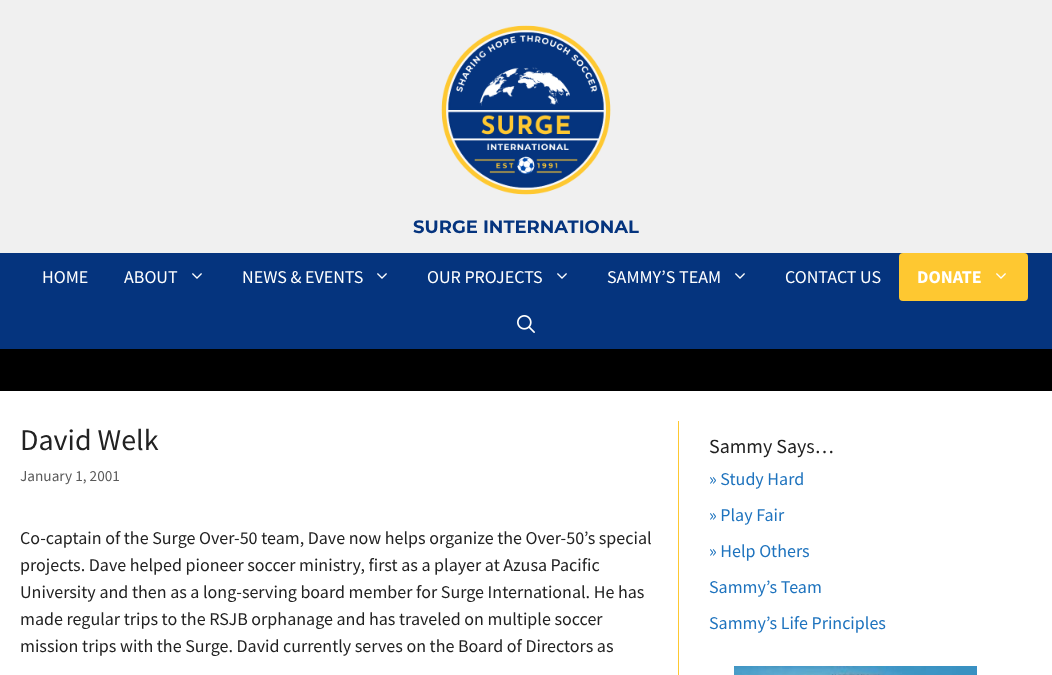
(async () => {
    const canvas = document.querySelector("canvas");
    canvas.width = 1052;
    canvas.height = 675;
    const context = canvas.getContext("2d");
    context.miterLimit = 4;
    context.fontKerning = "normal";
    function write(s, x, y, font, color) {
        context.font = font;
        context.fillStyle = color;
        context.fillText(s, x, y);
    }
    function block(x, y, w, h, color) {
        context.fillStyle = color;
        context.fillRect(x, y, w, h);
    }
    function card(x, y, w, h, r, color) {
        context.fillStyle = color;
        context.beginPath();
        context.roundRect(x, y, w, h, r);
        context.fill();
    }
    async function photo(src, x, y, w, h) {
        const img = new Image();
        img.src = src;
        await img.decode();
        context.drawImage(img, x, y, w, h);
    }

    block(0, 0, 1052, 675, "rgb(255, 255, 255)");
    block(0, 0, 1052, 253, "rgb(240, 240, 240)");
    await photo("media/1.png", 441, 25, 170, 170);
    write("SURGE INTERNATIONAL", 413, 233, "100 18px Montserrat", "rgb(5, 52, 126)");
    block(0, 253, 1052, 96, "rgb(5, 52, 126)");
    write("HOME", 42, 283, "18px Source Sans Pro", "rgb(255, 255, 255)");
    write("ABOUT", 124, 283, "18px Source Sans Pro", "rgb(255, 255, 255)");
    await photo("media/2.png", 192, 273, 10, 6);
    write("NEWS & EVENTS", 242, 283, "18px Source Sans Pro", "rgb(255, 255, 255)");
    await photo("media/2.png", 377, 273, 10, 6);
    write("OUR PROJECTS", 427, 283, "18px Source Sans Pro", "rgb(255, 255, 255)");
    await photo("media/2.png", 557, 273, 10, 6);
    write("SAMMY’S TEAM", 607, 283, "18px Source Sans Pro", "rgb(255, 255, 255)");
    await photo("media/2.png", 735, 273, 10, 6);
    write("CONTACT US", 785, 283, "18px Source Sans Pro", "rgb(255, 255, 255)");
    card(899, 253, 129, 48, 4, "rgb(254, 200, 49)");
    write("DONATE", 917, 283, "bold 18px Source Sans Pro", "rgb(255, 255, 255)");
    await photo("media/3.png", 996, 273, 10, 6);
    await photo("media/4.png", 517, 315, 18, 18);
    block(0, 349, 1052, 42, "rgb(0, 0, 0)");
    write("David Welk", 20, 450, "30px Source Sans Pro", "rgb(34, 34, 34)");
    write("January 1, 2001", 20, 481, "15.25px Source Sans Pro", "rgb(89, 89, 89)");
    write("Co-captain of the Surge Over-50 team, Dave now helps organize the Over-50’s special", 20, 544, "18px Source Sans Pro", "rgb(34, 34, 34)");
    write("projects. Dave helped pioneer soccer ministry, first as a player at Azusa Pacific", 20, 571, "18px Source Sans Pro", "rgb(34, 34, 34)");
    write("University and then as a long-serving board member for Surge International. He has", 20, 598, "18px Source Sans Pro", "rgb(34, 34, 34)");
    write("made regular trips to the RSJB orphanage and has traveled on multiple soccer", 20, 625, "18px Source Sans Pro", "rgb(34, 34, 34)");
    write("mission trips with the Surge. David currently serves on the Board of Directors as", 20, 652, "18px Source Sans Pro", "rgb(34, 34, 34)");
    block(678, 421, 1, 254, "rgb(254, 200, 49)");
    write("Sammy Says…", 709, 453, "20px Source Sans Pro", "rgb(34, 34, 34)");
    write("» Study Hard", 709, 485, "18px Source Sans Pro", "rgb(30, 115, 190)");
    write("» Play Fair", 709, 521, "18px Source Sans Pro", "rgb(30, 115, 190)");
    write("» Help Others", 709, 557, "18px Source Sans Pro", "rgb(30, 115, 190)");
    write("Sammy’s Team", 709, 593, "18px Source Sans Pro", "rgb(30, 115, 190)");
    write("Sammy’s Life Principles", 709, 629, "18px Source Sans Pro", "rgb(30, 115, 190)");
    await photo("media/5.png", 734, 666, 243, 9);
})();
